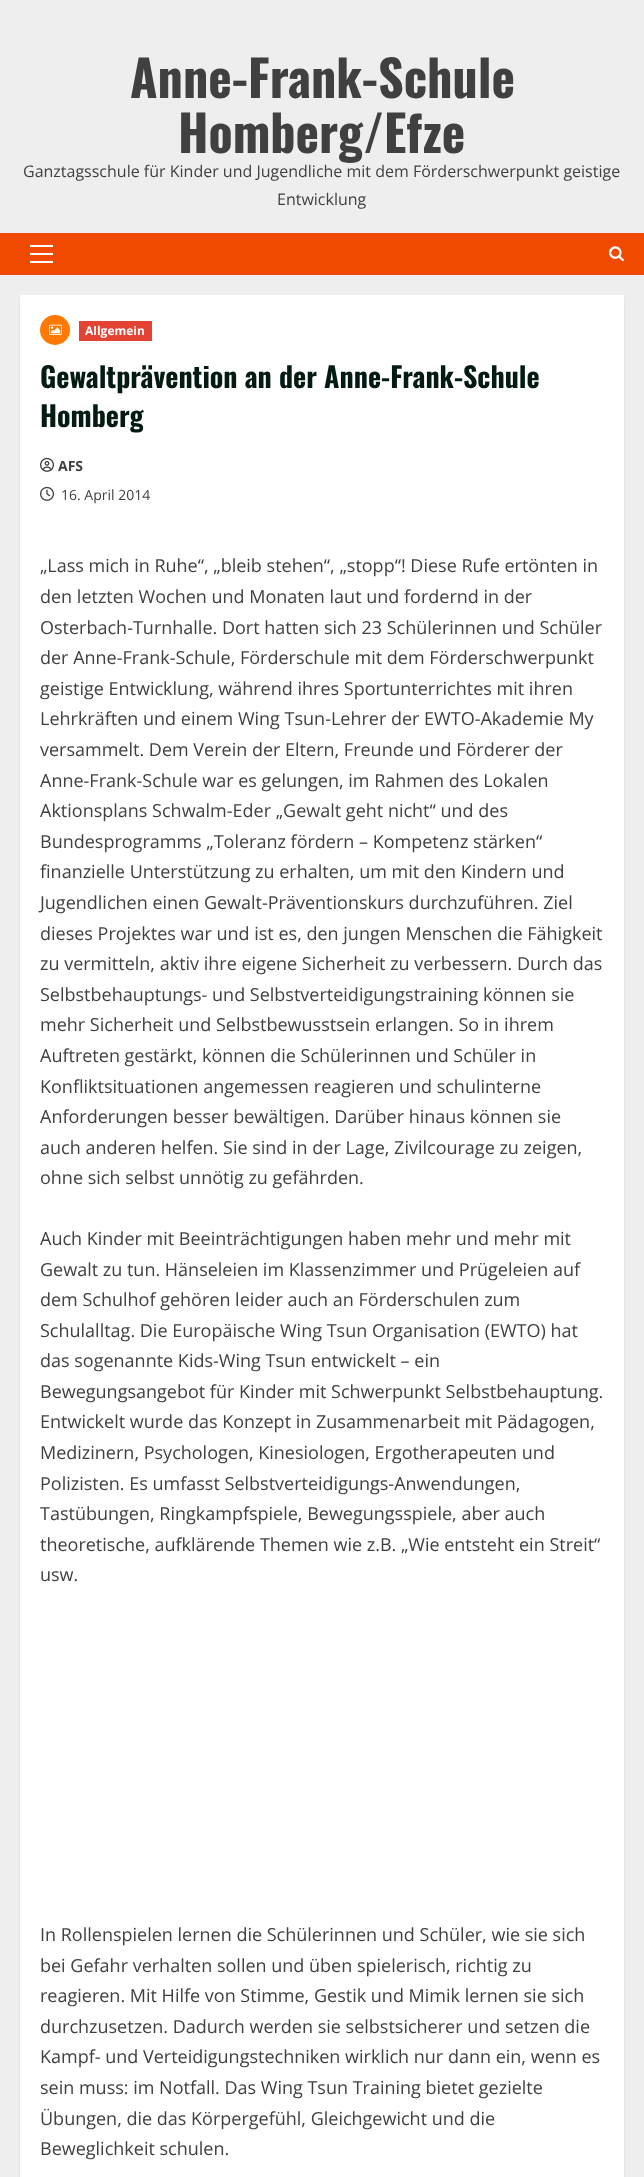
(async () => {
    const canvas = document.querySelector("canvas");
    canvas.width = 644;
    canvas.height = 2177;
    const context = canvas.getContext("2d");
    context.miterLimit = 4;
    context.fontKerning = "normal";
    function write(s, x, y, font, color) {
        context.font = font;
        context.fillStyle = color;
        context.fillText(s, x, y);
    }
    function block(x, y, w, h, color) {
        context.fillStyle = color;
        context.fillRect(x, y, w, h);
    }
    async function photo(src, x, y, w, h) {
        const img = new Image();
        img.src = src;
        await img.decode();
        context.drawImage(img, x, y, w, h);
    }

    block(0, 0, 644, 2177, "rgb(238, 238, 238)");
    write("Anne-Frank-Schule", 130, 98, "bold 50px Oswald", "rgb(64, 64, 64)");
    write("Homberg/Efze", 178, 153, "bold 50px Oswald", "rgb(64, 64, 64)");
    write("Ganztagsschule für Kinder und Jugendliche mit dem Förderschwerpunkt geistige", 23, 177, "16px Open Sans", "rgb(64, 64, 64)");
    write("Entwicklung", 277, 205, "16px Open Sans", "rgb(64, 64, 64)");
    block(0, 233, 644, 42, "rgb(240, 73, 1)");
    block(30, 253, 23, 2, "rgb(255, 255, 255)");
    block(30, 245, 23, 2, "rgb(255, 255, 255)");
    block(30, 261, 23, 2, "rgb(255, 255, 255)");
    await photo("media/1.png", 609, 246, 15, 16);
    context.fillStyle = "rgba(0, 0, 0, 0.08)";
    context.filter = "blur(1px)";
    context.beginPath();
    context.rect(20, 297, 604, 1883);
    context.fill();
    context.filter = "none";
    block(20, 295, 604, 1882, "rgb(255, 255, 255)");
    context.fillStyle = "rgb(255, 121, 3)";
    context.beginPath();
    context.arc(55, 330, 15, 0, Math.PI * 2);
    context.fill();
    await photo("media/2.png", 49, 324, 13, 11);
    block(79, 321, 73, 20, "rgb(228, 66, 51)");
    write("Allgemein", 85, 335, "bold 12px Open Sans", "rgb(255, 255, 255)");
    write("Gewaltprävention an der Anne-Frank-Schule", 40, 388, "bold 28px Oswald", "rgb(3, 27, 17)");
    write("Homberg", 40, 427, "bold 28px Oswald", "rgb(3, 27, 17)");
    await photo("media/3.png", 40, 457, 14, 15);
    write("AFS", 58, 471, "bold 14px Open Sans", "rgb(64, 64, 64)");
    await photo("media/4.png", 40, 486, 14, 15);
    write("16. April 2014", 61, 500, "14px Open Sans", "rgb(64, 64, 64)");
    write("„Lass mich in Ruhe“, „bleib stehen“, „stopp“! Diese Rufe ertönten in", 40, 572, "18px Open Sans", "rgb(64, 64, 64)");
    write("den letzten Wochen und Monaten laut und fordernd in der", 40, 603, "18px Open Sans", "rgb(64, 64, 64)");
    write("Osterbach-Turnhalle. Dort hatten sich 23 Schülerinnen und Schüler", 40, 634, "18px Open Sans", "rgb(64, 64, 64)");
    write("der Anne-Frank-Schule, Förderschule mit dem Förderschwerpunkt", 40, 664, "18px Open Sans", "rgb(64, 64, 64)");
    write("geistige Entwicklung, während ihres Sportunterrichtes mit ihren", 40, 695, "18px Open Sans", "rgb(64, 64, 64)");
    write("Lehrkräften und einem Wing Tsun-Lehrer der EWTO-Akademie My", 40, 725, "18px Open Sans", "rgb(64, 64, 64)");
    write("versammelt. Dem Verein der Eltern, Freunde und Förderer der", 40, 756, "18px Open Sans", "rgb(64, 64, 64)");
    write("Anne-Frank-Schule war es gelungen, im Rahmen des Lokalen", 40, 787, "18px Open Sans", "rgb(64, 64, 64)");
    write("Aktionsplans Schwalm-Eder „Gewalt geht nicht“ und des", 40, 817, "18px Open Sans", "rgb(64, 64, 64)");
    write("Bundesprogramms „Toleranz fördern – Kompetenz stärken“", 40, 848, "18px Open Sans", "rgb(64, 64, 64)");
    write("finanzielle Unterstützung zu erhalten, um mit den Kindern und", 40, 878, "18px Open Sans", "rgb(64, 64, 64)");
    write("Jugendlichen einen Gewalt-Präventionskurs durchzuführen. Ziel", 40, 909, "18px Open Sans", "rgb(64, 64, 64)");
    write("dieses Projektes war und ist es, den jungen Menschen die Fähigkeit", 40, 940, "18px Open Sans", "rgb(64, 64, 64)");
    write("zu vermitteln, aktiv ihre eigene Sicherheit zu verbessern. Durch das", 40, 970, "18px Open Sans", "rgb(64, 64, 64)");
    write("Selbstbehauptungs- und Selbstverteidigungstraining können sie", 40, 1001, "18px Open Sans", "rgb(64, 64, 64)");
    write("mehr Sicherheit und Selbstbewusstsein erlangen. So in ihrem", 40, 1031, "18px Open Sans", "rgb(64, 64, 64)");
    write("Auftreten gestärkt, können die Schülerinnen und Schüler in", 40, 1062, "18px Open Sans", "rgb(64, 64, 64)");
    write("Konfliktsituationen angemessen reagieren und schulinterne", 40, 1093, "18px Open Sans", "rgb(64, 64, 64)");
    write("Anforderungen besser bewältigen. Darüber hinaus können sie", 40, 1123, "18px Open Sans", "rgb(64, 64, 64)");
    write("auch anderen helfen. Sie sind in der Lage, Zivilcourage zu zeigen,", 40, 1154, "18px Open Sans", "rgb(64, 64, 64)");
    write("ohne sich selbst unnötig zu gefährden.", 40, 1184, "18px Open Sans", "rgb(64, 64, 64)");
    write("Auch Kinder mit Beeinträchtigungen haben mehr und mehr mit", 40, 1245, "18px Open Sans", "rgb(64, 64, 64)");
    write("Gewalt zu tun. Hänseleien im Klassenzimmer und Prügeleien auf", 40, 1276, "18px Open Sans", "rgb(64, 64, 64)");
    write("dem Schulhof gehören leider auch an Förderschulen zum", 40, 1306, "18px Open Sans", "rgb(64, 64, 64)");
    write("Schulalltag. Die Europäische Wing Tsun Organisation (EWTO) hat", 40, 1337, "18px Open Sans", "rgb(64, 64, 64)");
    write("das sogenannte Kids-Wing Tsun entwickelt – ein", 40, 1367, "18px Open Sans", "rgb(64, 64, 64)");
    write("Bewegungsangebot für Kinder mit Schwerpunkt Selbstbehauptung.", 40, 1398, "18px Open Sans", "rgb(64, 64, 64)");
    write("Entwickelt wurde das Konzept in Zusammenarbeit mit Pädagogen,", 40, 1428, "18px Open Sans", "rgb(64, 64, 64)");
    write("Medizinern, Psychologen, Kinesiologen, Ergotherapeuten und", 40, 1459, "18px Open Sans", "rgb(64, 64, 64)");
    write("Polizisten. Es umfasst Selbstverteidigungs-Anwendungen,", 40, 1490, "18px Open Sans", "rgb(64, 64, 64)");
    write("Tastübungen, Ringkampfspiele, Bewegungsspiele, aber auch", 40, 1520, "18px Open Sans", "rgb(64, 64, 64)");
    write("theoretische, aufklärende Themen wie z.B. „Wie entsteht ein Streit“", 40, 1551, "18px Open Sans", "rgb(64, 64, 64)");
    write("usw.", 40, 1581, "18px Open Sans", "rgb(64, 64, 64)");
    write("In Rollenspielen lernen die Schülerinnen und Schüler, wie sie sich", 40, 1941, "18px Open Sans", "rgb(64, 64, 64)");
    write("bei Gefahr verhalten sollen und üben spielerisch, richtig zu", 40, 1972, "18px Open Sans", "rgb(64, 64, 64)");
    write("reagieren. Mit Hilfe von Stimme, Gestik und Mimik lernen sie sich", 40, 2002, "18px Open Sans", "rgb(64, 64, 64)");
    write("durchzusetzen. Dadurch werden sie selbstsicherer und setzen die", 40, 2033, "18px Open Sans", "rgb(64, 64, 64)");
    write("Kampf- und Verteidigungstechniken wirklich nur dann ein, wenn es", 40, 2063, "18px Open Sans", "rgb(64, 64, 64)");
    write("sein muss: im Notfall. Das Wing Tsun Training bietet gezielte", 40, 2094, "18px Open Sans", "rgb(64, 64, 64)");
    write("Übungen, die das Körpergefühl, Gleichgewicht und die", 40, 2125, "18px Open Sans", "rgb(64, 64, 64)");
    write("Beweglichkeit schulen.", 40, 2155, "18px Open Sans", "rgb(64, 64, 64)");
})();
